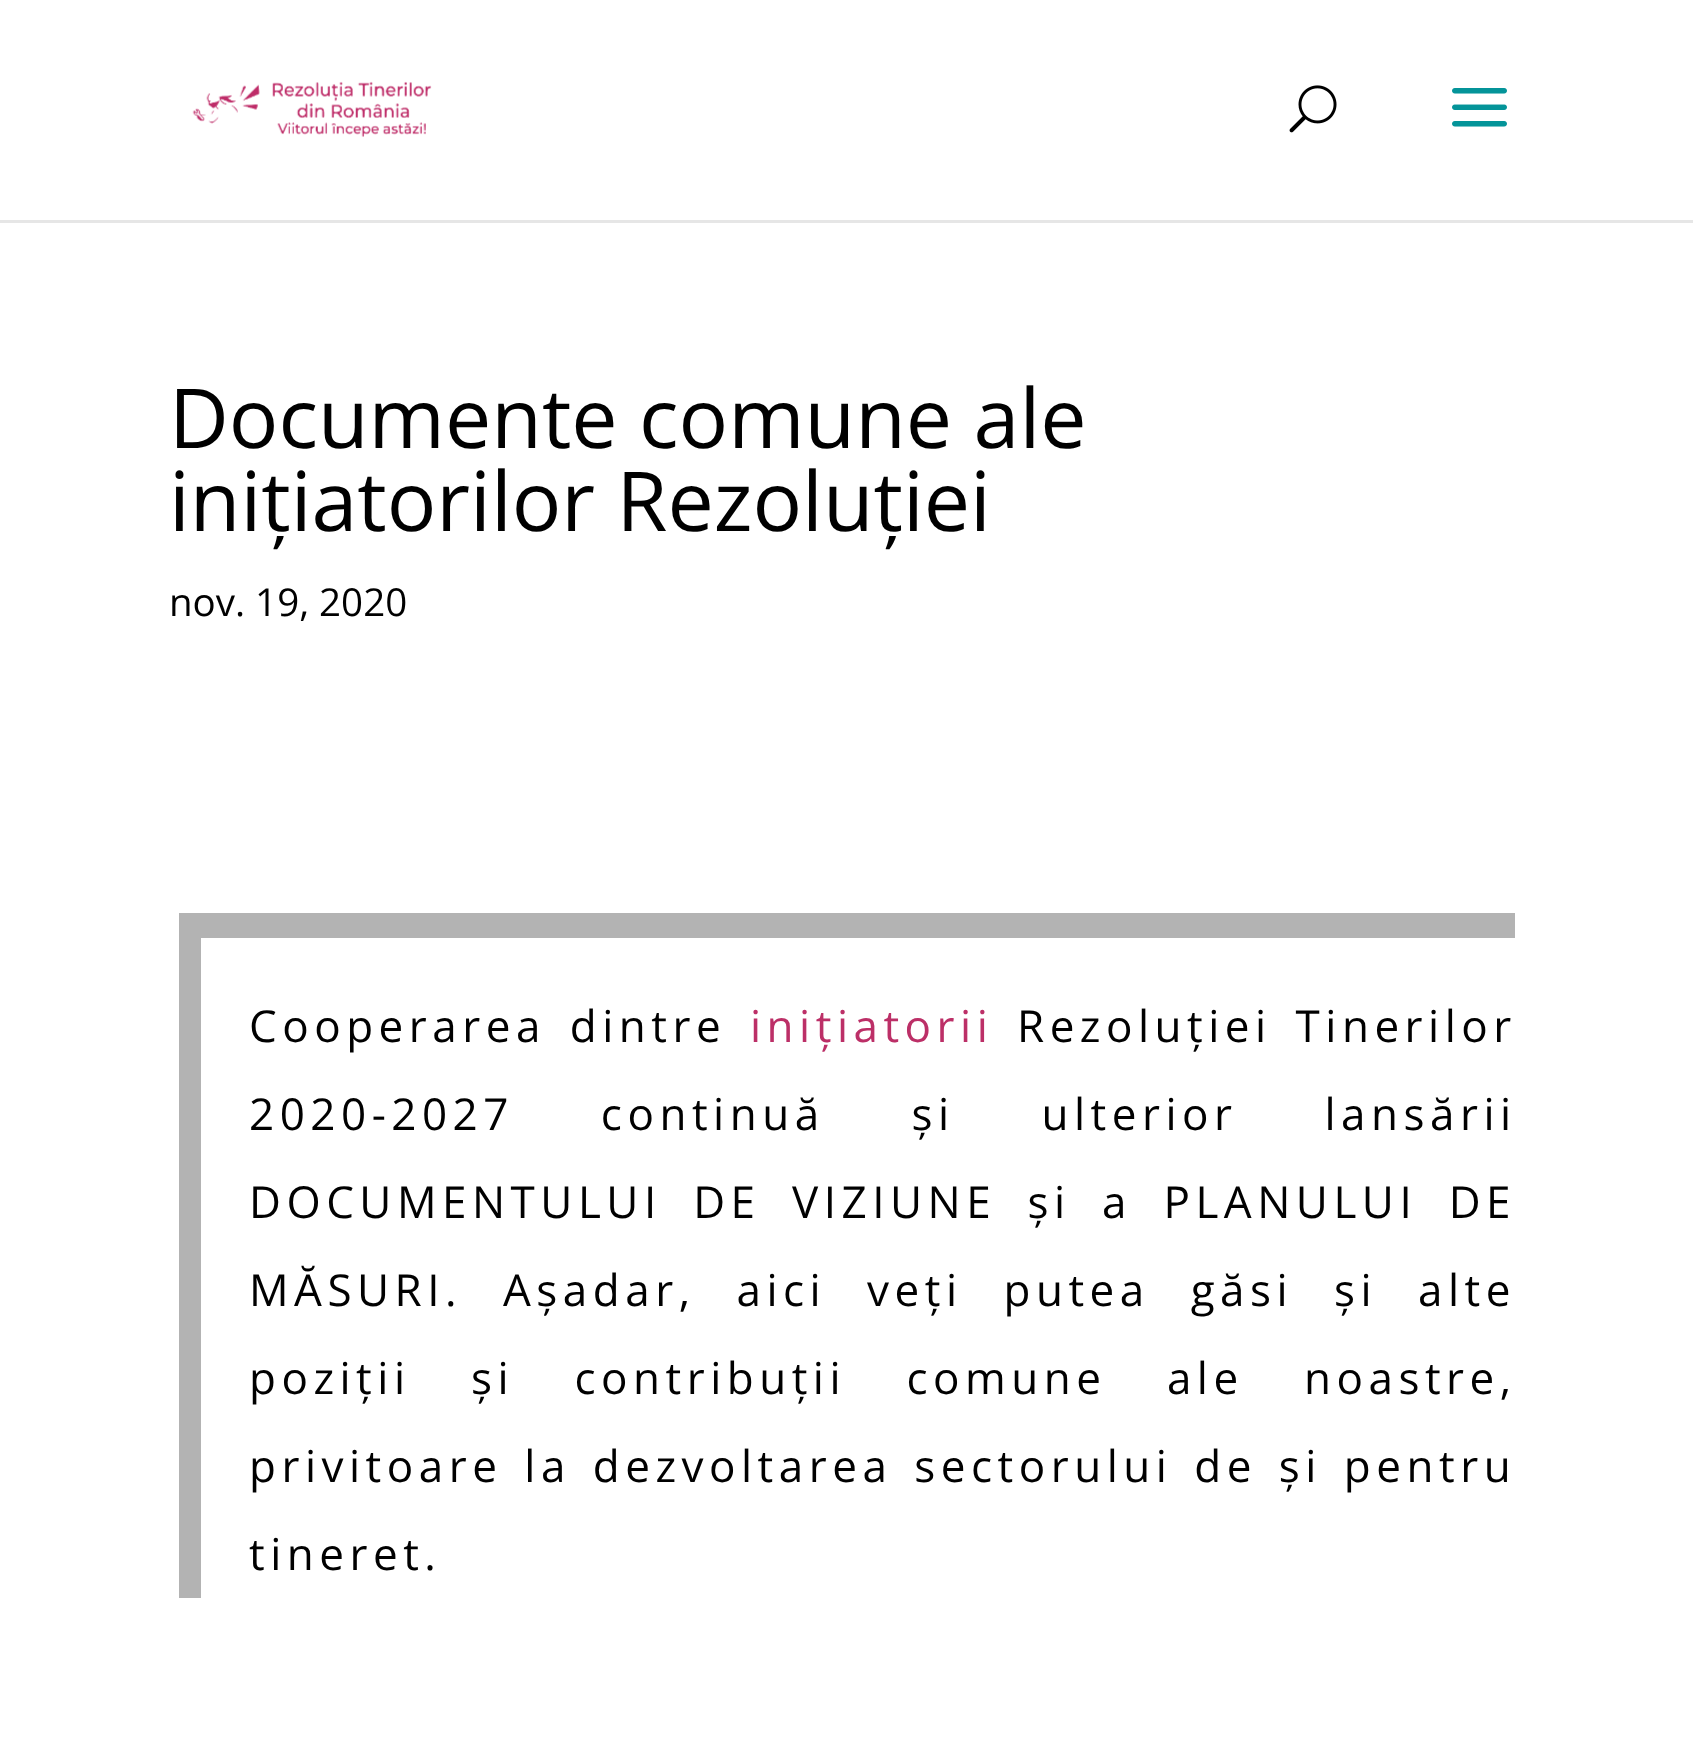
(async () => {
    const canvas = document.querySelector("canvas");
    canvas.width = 1693;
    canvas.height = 1751;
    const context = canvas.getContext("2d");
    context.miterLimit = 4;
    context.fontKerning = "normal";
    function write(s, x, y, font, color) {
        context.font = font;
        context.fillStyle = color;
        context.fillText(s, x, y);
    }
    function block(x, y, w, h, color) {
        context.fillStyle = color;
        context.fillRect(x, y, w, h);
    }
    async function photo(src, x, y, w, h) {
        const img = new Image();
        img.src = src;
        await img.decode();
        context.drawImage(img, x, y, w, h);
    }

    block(0, 0, 1693, 1751, "rgb(255, 255, 255)");
    block(0, 220, 1693, 3, "rgb(230, 230, 230)");
    await photo("media/1.png", 192, 81, 240, 56);
    await photo("media/2.png", 1289, 85, 48, 48);
    await photo("media/3.png", 1452, 88, 55, 39);
    write("Documente comune ale", 169, 448, "82.5px Open Sans", "rgb(0, 0, 0)");
    write("inițiatorilor Rezoluției", 169, 531, "82.5px Open Sans", "rgb(0, 0, 0)");
    write("nov. 19, 2020", 169, 616, "38.5px Open Sans", "rgb(0, 0, 0)");
    context.save();
    context.beginPath();
    context.rect(179, 913, 1336, 685);
    context.clip();
    context.fillStyle = "rgb(179, 179, 179)";
    context.beginPath();
    context.moveTo(-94, 641);
    context.lineTo(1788, 641);
    context.lineTo(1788, 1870);
    context.lineTo(-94, 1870);
    context.closePath();
    context.moveTo(201, 938);
    context.lineTo(1537, 938);
    context.lineTo(1537, 1622);
    context.lineTo(201, 1622);
    context.closePath();
    context.fill("evenodd");
    context.restore();
    context.letterSpacing = "5.5px";
    context.wordSpacing = "7px";
    write("Cooperarea dintre", 249, 1042, "44px Open Sans", "rgb(0, 0, 0)");
    context.wordSpacing = "0px";
    write("inițiatorii", 750, 1042, "44px Open Sans", "rgb(188, 47, 103)");
    context.wordSpacing = "7px";
    write("Rezoluției Tinerilor", 1017, 1042, "44px Open Sans", "rgb(0, 0, 0)");
    context.wordSpacing = "70px";
    write("2020-2027 continuă și ulterior lansării", 249, 1130, "44px Open Sans", "rgb(0, 0, 0)");
    context.wordSpacing = "14.5px";
    write("DOCUMENTULUI DE VIZIUNE și a PLANULUI DE", 249, 1218, "44px Open Sans", "rgb(0, 0, 0)");
    context.wordSpacing = "24px";
    write("MĂSURI. Așadar, aici veți putea găsi și alte", 249, 1306, "44px Open Sans", "rgb(0, 0, 0)");
    context.wordSpacing = "43.5px";
    write("poziții și contribuții comune ale noastre,", 249, 1394, "44px Open Sans", "rgb(0, 0, 0)");
    context.wordSpacing = "5px";
    write("privitoare la dezvoltarea sectorului de și pentru", 249, 1482, "44px Open Sans", "rgb(0, 0, 0)");
    context.wordSpacing = "0px";
    write("tineret.", 249, 1570, "44px Open Sans", "rgb(0, 0, 0)");
})();
